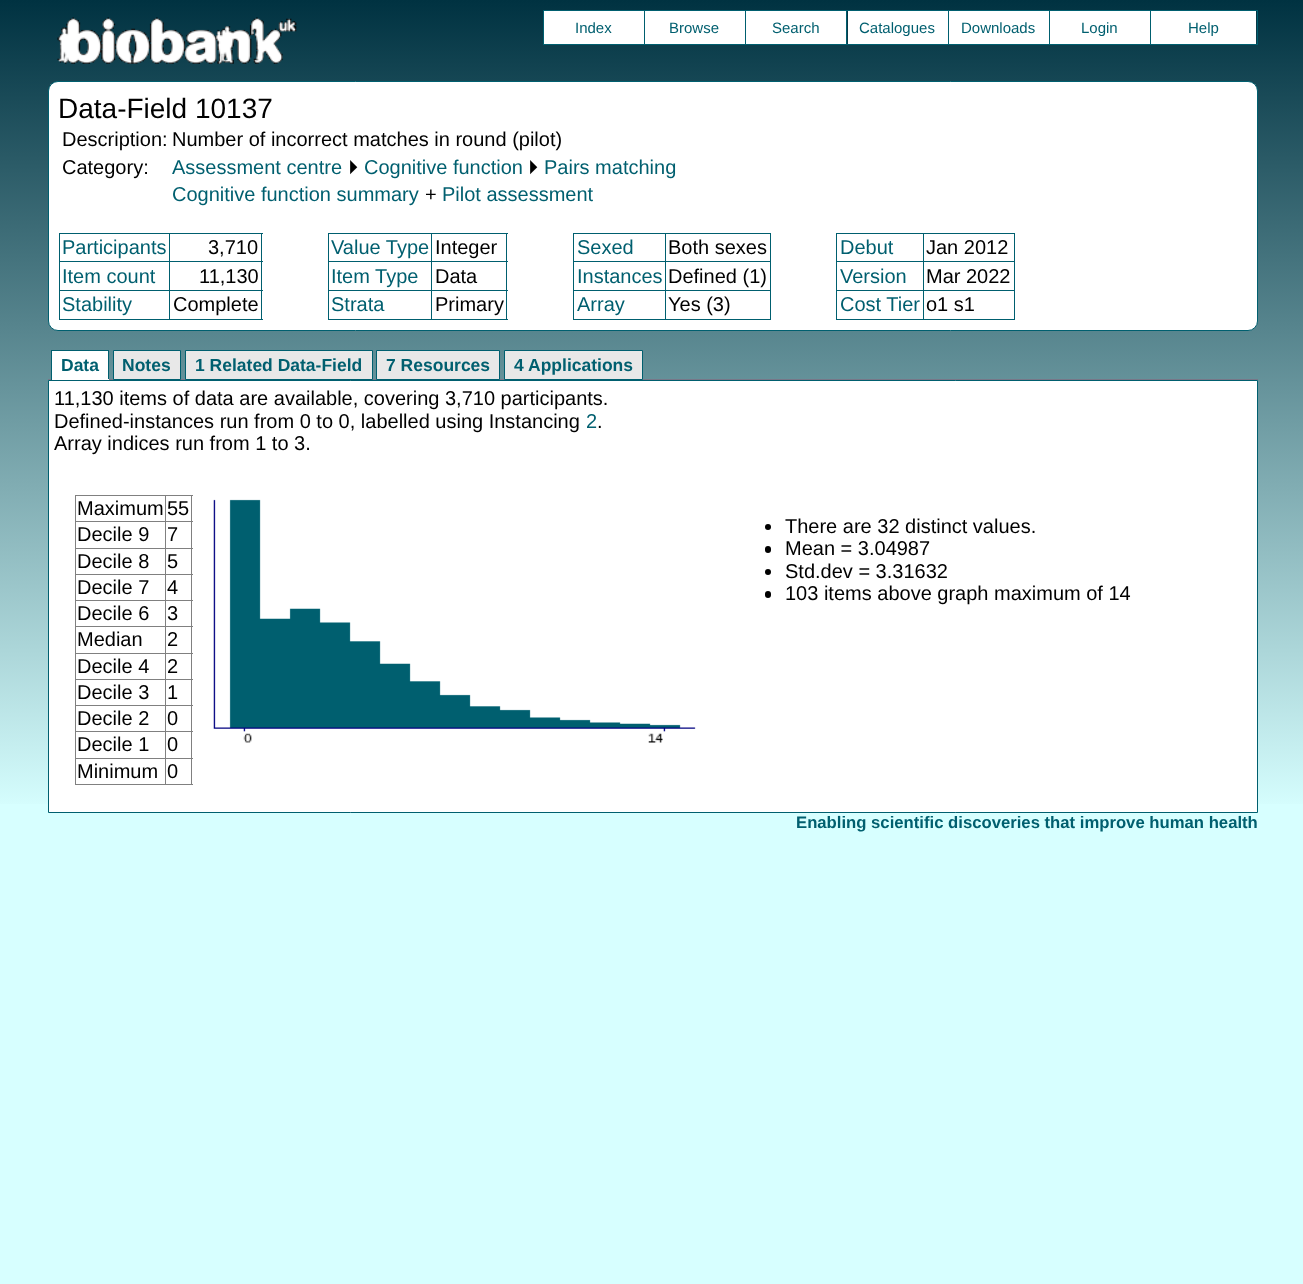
(async () => {
    const canvas = document.querySelector("canvas");
    canvas.width = 1303;
    canvas.height = 1284;
    const context = canvas.getContext("2d");
    context.miterLimit = 4;
    context.fontKerning = "normal";
    function write(s, x, y, font, color) {
        context.font = font;
        context.fillStyle = color;
        context.fillText(s, x, y);
    }
    function block(x, y, w, h, color) {
        context.fillStyle = color;
        context.fillRect(x, y, w, h);
    }
    function card(x, y, w, h, r, color) {
        context.fillStyle = color;
        context.beginPath();
        context.roundRect(x, y, w, h, r);
        context.fill();
    }
    async function photo(src, x, y, w, h) {
        const img = new Image();
        img.src = src;
        await img.decode();
        context.drawImage(img, x, y, w, h);
    }
    let gradient;

    block(0, 0, 1303, 1284, "rgb(215, 255, 255)");
    gradient = context.createLinearGradient(0, 0, 0, 813);
    gradient.addColorStop(0, "rgb(0, 50, 65)");
    gradient.addColorStop(1, "rgb(215, 255, 255)");
    context.fillStyle = gradient;
    context.fillRect(0, 0, 1303, 804);
    await photo("media/1.png", 57, 17, 240, 47);
    block(543, 10, 607, 1, "rgb(0, 95, 111)");
    block(543, 44, 607, 1, "rgb(0, 95, 111)");
    block(543, 10, 1, 35, "rgb(0, 95, 111)");
    block(544, 11, 100, 33, "rgb(255, 255, 255)");
    write("Index", 575, 33, "15px Liberation Sans", "rgb(0, 95, 111)");
    block(644, 10, 1, 35, "rgb(0, 95, 111)");
    block(645, 11, 100, 33, "rgb(255, 255, 255)");
    write("Browse", 669, 33, "15px Liberation Sans", "rgb(0, 95, 111)");
    block(745, 10, 1, 35, "rgb(0, 95, 111)");
    block(746, 11, 100, 33, "rgb(255, 255, 255)");
    write("Search", 772, 33, "15px Liberation Sans", "rgb(0, 95, 111)");
    block(846, 10, 1, 35, "rgb(0, 95, 111)");
    block(848, 11, 100, 33, "rgb(255, 255, 255)");
    write("Catalogues", 859, 33, "15px Liberation Sans", "rgb(0, 95, 111)");
    block(948, 10, 1, 35, "rgb(0, 95, 111)");
    block(949, 11, 100, 33, "rgb(255, 255, 255)");
    write("Downloads", 961, 33, "15px Liberation Sans", "rgb(0, 95, 111)");
    block(1049, 10, 1, 35, "rgb(0, 95, 111)");
    block(1050, 11, 100, 33, "rgb(255, 255, 255)");
    write("Login", 1081, 33, "15px Liberation Sans", "rgb(0, 95, 111)");
    context.strokeStyle = "rgb(0, 95, 111)";
    context.strokeRect(1150.5, 10.5, 107, 34);
    block(1151, 11, 105, 33, "rgb(255, 255, 255)");
    write("Help", 1188, 33, "15px Liberation Sans", "rgb(0, 95, 111)");
    context.fillStyle = "rgb(255, 255, 255)";
    context.beginPath();
    context.roundRect(48.5, 81.5, 1209, 249, 9.5);
    context.fill();
    context.stroke();
    write("Data-Field 10137", 58, 118, "28px Liberation Sans", "rgb(0, 0, 0)");
    write("Description:", 62, 146, "20px Liberation Sans", "rgb(0, 0, 0)");
    write("Number of incorrect matches in round (pilot)", 172, 146, "20px Liberation Sans", "rgb(0, 0, 0)");
    write("Category:", 62, 174, "20px Liberation Sans", "rgb(0, 0, 0)");
    write("Assessment centre", 172, 174, "20px Liberation Sans", "rgb(0, 95, 111)");
    write("⏵", 348, 174, "20px FreeSans", "rgb(0, 0, 0)");
    write("Cognitive function", 364, 174, "20px Liberation Sans", "rgb(0, 95, 111)");
    write("⏵", 528, 174, "20px FreeSans", "rgb(0, 0, 0)");
    write("Pairs matching", 544, 174, "20px Liberation Sans", "rgb(0, 95, 111)");
    write("Cognitive function summary", 172, 201, "20px Liberation Sans", "rgb(0, 95, 111)");
    write("+", 425, 201, "20px Liberation Sans", "rgb(0, 0, 0)");
    write("Pilot assessment", 442, 201, "20px Liberation Sans", "rgb(0, 95, 111)");
    block(169, 233, 94, 1, "rgb(0, 95, 111)");
    block(169, 261, 94, 1, "rgb(0, 95, 111)");
    block(169, 290, 94, 1, "rgb(0, 95, 111)");
    block(261, 290, 1, 30, "rgb(0, 95, 111)");
    block(169, 319, 94, 1, "rgb(0, 95, 111)");
    block(169, 290, 1, 30, "rgb(0, 95, 111)");
    block(59, 290, 111, 1, "rgb(0, 95, 111)");
    block(169, 261, 1, 30, "rgb(0, 95, 111)");
    block(59, 261, 111, 1, "rgb(0, 95, 111)");
    block(169, 233, 1, 30, "rgb(0, 95, 111)");
    block(59, 233, 111, 1, "rgb(0, 95, 111)");
    block(59, 319, 111, 1, "rgb(0, 95, 111)");
    block(59, 290, 1, 30, "rgb(0, 95, 111)");
    block(59, 261, 1, 30, "rgb(0, 95, 111)");
    block(59, 233, 1, 30, "rgb(0, 95, 111)");
    write("Participants", 62, 254, "20px Liberation Sans", "rgb(0, 95, 111)");
    block(261, 261, 1, 30, "rgb(0, 95, 111)");
    block(261, 233, 1, 30, "rgb(0, 95, 111)");
    write("3,710", 208, 254, "20px Liberation Sans", "rgb(0, 0, 0)");
    block(431, 233, 77, 1, "rgb(0, 95, 111)");
    block(431, 261, 77, 1, "rgb(0, 95, 111)");
    block(431, 290, 77, 1, "rgb(0, 95, 111)");
    block(506, 290, 1, 30, "rgb(0, 95, 111)");
    block(431, 319, 77, 1, "rgb(0, 95, 111)");
    block(431, 290, 1, 30, "rgb(0, 95, 111)");
    block(328, 290, 105, 1, "rgb(0, 95, 111)");
    block(431, 261, 1, 30, "rgb(0, 95, 111)");
    block(328, 261, 105, 1, "rgb(0, 95, 111)");
    block(431, 233, 1, 30, "rgb(0, 95, 111)");
    block(328, 233, 105, 1, "rgb(0, 95, 111)");
    block(328, 319, 105, 1, "rgb(0, 95, 111)");
    block(328, 290, 1, 30, "rgb(0, 95, 111)");
    block(328, 261, 1, 30, "rgb(0, 95, 111)");
    block(328, 233, 1, 30, "rgb(0, 95, 111)");
    write("Value Type", 331, 254, "20px Liberation Sans", "rgb(0, 95, 111)");
    block(506, 261, 1, 30, "rgb(0, 95, 111)");
    block(506, 233, 1, 30, "rgb(0, 95, 111)");
    write("Integer", 435, 254, "20px Liberation Sans", "rgb(0, 0, 0)");
    block(665, 233, 106, 1, "rgb(0, 95, 111)");
    block(665, 261, 106, 1, "rgb(0, 95, 111)");
    block(665, 290, 106, 1, "rgb(0, 95, 111)");
    block(770, 290, 1, 30, "rgb(0, 95, 111)");
    block(665, 319, 106, 1, "rgb(0, 95, 111)");
    block(665, 290, 1, 30, "rgb(0, 95, 111)");
    block(573, 290, 93, 1, "rgb(0, 95, 111)");
    block(665, 261, 1, 30, "rgb(0, 95, 111)");
    block(573, 261, 93, 1, "rgb(0, 95, 111)");
    block(665, 233, 1, 30, "rgb(0, 95, 111)");
    block(573, 233, 93, 1, "rgb(0, 95, 111)");
    block(573, 319, 93, 1, "rgb(0, 95, 111)");
    block(573, 290, 1, 30, "rgb(0, 95, 111)");
    block(573, 261, 1, 30, "rgb(0, 95, 111)");
    block(573, 233, 1, 30, "rgb(0, 95, 111)");
    write("Sexed", 577, 254, "20px Liberation Sans", "rgb(0, 95, 111)");
    block(770, 261, 1, 30, "rgb(0, 95, 111)");
    block(770, 233, 1, 30, "rgb(0, 95, 111)");
    write("Both sexes", 668, 254, "20px Liberation Sans", "rgb(0, 0, 0)");
    block(923, 233, 92, 1, "rgb(0, 95, 111)");
    block(923, 261, 92, 1, "rgb(0, 95, 111)");
    block(923, 290, 92, 1, "rgb(0, 95, 111)");
    block(1014, 290, 1, 30, "rgb(0, 95, 111)");
    block(923, 319, 92, 1, "rgb(0, 95, 111)");
    block(923, 290, 1, 30, "rgb(0, 95, 111)");
    block(836, 290, 88, 1, "rgb(0, 95, 111)");
    block(923, 261, 1, 30, "rgb(0, 95, 111)");
    block(836, 261, 88, 1, "rgb(0, 95, 111)");
    block(923, 233, 1, 30, "rgb(0, 95, 111)");
    block(836, 233, 88, 1, "rgb(0, 95, 111)");
    block(836, 319, 88, 1, "rgb(0, 95, 111)");
    block(836, 290, 1, 30, "rgb(0, 95, 111)");
    block(836, 261, 1, 30, "rgb(0, 95, 111)");
    block(836, 233, 1, 30, "rgb(0, 95, 111)");
    write("Debut", 840, 254, "20px Liberation Sans", "rgb(0, 95, 111)");
    block(1014, 261, 1, 30, "rgb(0, 95, 111)");
    block(1014, 233, 1, 30, "rgb(0, 95, 111)");
    write("Jan 2012", 926, 254, "20px Liberation Sans", "rgb(0, 0, 0)");
    write("Item count", 62, 283, "20px Liberation Sans", "rgb(0, 95, 111)");
    write("11,130", 199, 283, "20px Liberation Sans", "rgb(0, 0, 0)");
    write("Item Type", 331, 283, "20px Liberation Sans", "rgb(0, 95, 111)");
    write("Data", 435, 283, "20px Liberation Sans", "rgb(0, 0, 0)");
    write("Instances", 577, 283, "20px Liberation Sans", "rgb(0, 95, 111)");
    write("Defined (1)", 668, 283, "20px Liberation Sans", "rgb(0, 0, 0)");
    write("Version", 840, 283, "20px Liberation Sans", "rgb(0, 95, 111)");
    write("Mar 2022", 926, 283, "20px Liberation Sans", "rgb(0, 0, 0)");
    write("Stability", 62, 311, "20px Liberation Sans", "rgb(0, 95, 111)");
    write("Complete", 173, 311, "20px Liberation Sans", "rgb(0, 0, 0)");
    write("Strata", 331, 311, "20px Liberation Sans", "rgb(0, 95, 111)");
    write("Primary", 435, 311, "20px Liberation Sans", "rgb(0, 0, 0)");
    write("Array", 577, 311, "20px Liberation Sans", "rgb(0, 95, 111)");
    write("Yes (3)", 668, 311, "20px Liberation Sans", "rgb(0, 0, 0)");
    write("Cost Tier", 840, 311, "20px Liberation Sans", "rgb(0, 95, 111)");
    write("o1 s1", 926, 311, "20px Liberation Sans", "rgb(0, 0, 0)");
    block(48, 379, 1210, 1, "rgb(119, 119, 136)");
    block(52, 351, 56, 28, "rgb(255, 255, 255)");
    write("Data", 61, 371, "bold 17.5px Liberation Sans", "rgb(0, 95, 111)");
    block(51, 350, 58, 1, "rgb(0, 95, 111)");
    block(108, 350, 1, 30, "rgb(0, 95, 111)");
    block(51, 379, 58, 1, "rgb(255, 255, 255)");
    block(51, 350, 1, 30, "rgb(0, 95, 111)");
    context.fillStyle = "rgb(232, 232, 232)";
    context.beginPath();
    context.rect(113.5, 350.5, 67, 29);
    context.fill();
    context.stroke();
    write("Notes", 122, 371, "bold 17.5px Liberation Sans", "rgb(0, 95, 111)");
    context.fillStyle = "rgb(232, 232, 232)";
    context.beginPath();
    context.rect(185.5, 350.5, 187, 29);
    context.fill();
    context.stroke();
    write("1 Related Data-Field", 195, 371, "bold 17.5px Liberation Sans", "rgb(0, 95, 111)");
    context.fillStyle = "rgb(232, 232, 232)";
    context.beginPath();
    context.rect(376.5, 350.5, 123, 29);
    context.fill();
    context.stroke();
    write("7 Resources", 386, 371, "bold 17.5px Liberation Sans", "rgb(0, 95, 111)");
    context.fillStyle = "rgb(232, 232, 232)";
    context.beginPath();
    context.rect(504.5, 350.5, 138, 29);
    context.fill();
    context.stroke();
    write("4", 514, 371, "bold 17.5px Liberation Sans", "rgb(0, 95, 111)");
    write("Applications", 528, 371, "bold 17.5px Liberation Sans", "rgb(0, 95, 111)");
    context.fillStyle = "rgb(255, 255, 255)";
    context.beginPath();
    context.rect(48.5, 380.5, 1209, 432);
    context.fill();
    context.stroke();
    write("11,130 items of data are available, covering 3,710 participants.", 54, 405, "20px Liberation Sans", "rgb(0, 0, 0)");
    write("Defined-instances run from 0 to 0, labelled using Instancing", 54, 428, "20px Liberation Sans", "rgb(0, 0, 0)");
    write("2", 586, 428, "20px Liberation Sans", "rgb(0, 95, 111)");
    write(".", 597, 428, "20px Liberation Sans", "rgb(0, 0, 0)");
    write("Array indices run from 1 to 3.", 54, 450, "20px Liberation Sans", "rgb(0, 0, 0)");
    block(165, 495, 28, 1, "rgb(128, 128, 128)");
    block(165, 521, 28, 1, "rgb(128, 128, 128)");
    block(165, 548, 28, 1, "rgb(128, 128, 128)");
    block(165, 574, 28, 1, "rgb(128, 128, 128)");
    block(165, 600, 28, 1, "rgb(128, 128, 128)");
    block(165, 626, 28, 1, "rgb(128, 128, 128)");
    block(165, 653, 28, 1, "rgb(128, 128, 128)");
    block(165, 679, 28, 1, "rgb(128, 128, 128)");
    block(165, 705, 28, 1, "rgb(128, 128, 128)");
    block(165, 731, 28, 1, "rgb(128, 128, 128)");
    block(165, 758, 28, 1, "rgb(128, 128, 128)");
    block(191, 758, 1, 27, "rgb(128, 128, 128)");
    block(165, 784, 28, 1, "rgb(128, 128, 128)");
    block(165, 758, 1, 27, "rgb(128, 128, 128)");
    block(75, 758, 91, 1, "rgb(128, 128, 128)");
    block(165, 731, 1, 28, "rgb(128, 128, 128)");
    block(75, 731, 91, 1, "rgb(128, 128, 128)");
    block(165, 705, 1, 28, "rgb(128, 128, 128)");
    block(75, 705, 91, 1, "rgb(128, 128, 128)");
    block(165, 679, 1, 27, "rgb(128, 128, 128)");
    block(75, 679, 91, 1, "rgb(128, 128, 128)");
    block(165, 653, 1, 27, "rgb(128, 128, 128)");
    block(75, 653, 91, 1, "rgb(128, 128, 128)");
    block(165, 626, 1, 28, "rgb(128, 128, 128)");
    block(75, 626, 91, 1, "rgb(128, 128, 128)");
    block(165, 600, 1, 28, "rgb(128, 128, 128)");
    block(75, 600, 91, 1, "rgb(128, 128, 128)");
    block(165, 574, 1, 27, "rgb(128, 128, 128)");
    block(75, 574, 91, 1, "rgb(128, 128, 128)");
    block(165, 548, 1, 27, "rgb(128, 128, 128)");
    block(75, 548, 91, 1, "rgb(128, 128, 128)");
    block(165, 521, 1, 28, "rgb(128, 128, 128)");
    block(75, 521, 91, 1, "rgb(128, 128, 128)");
    block(165, 495, 1, 28, "rgb(128, 128, 128)");
    block(75, 495, 91, 1, "rgb(128, 128, 128)");
    block(75, 784, 91, 1, "rgb(128, 128, 128)");
    block(75, 758, 1, 27, "rgb(128, 128, 128)");
    block(75, 731, 1, 28, "rgb(128, 128, 128)");
    block(75, 705, 1, 28, "rgb(128, 128, 128)");
    block(75, 679, 1, 27, "rgb(128, 128, 128)");
    block(75, 653, 1, 27, "rgb(128, 128, 128)");
    block(75, 626, 1, 28, "rgb(128, 128, 128)");
    block(75, 600, 1, 28, "rgb(128, 128, 128)");
    block(75, 574, 1, 27, "rgb(128, 128, 128)");
    block(75, 548, 1, 27, "rgb(128, 128, 128)");
    block(75, 521, 1, 28, "rgb(128, 128, 128)");
    block(75, 495, 1, 28, "rgb(128, 128, 128)");
    write("Maximum", 77, 515, "20px Liberation Sans", "rgb(0, 0, 0)");
    block(191, 731, 1, 28, "rgb(128, 128, 128)");
    block(191, 705, 1, 28, "rgb(128, 128, 128)");
    block(191, 679, 1, 27, "rgb(128, 128, 128)");
    block(191, 653, 1, 27, "rgb(128, 128, 128)");
    block(191, 626, 1, 28, "rgb(128, 128, 128)");
    block(191, 600, 1, 28, "rgb(128, 128, 128)");
    block(191, 574, 1, 27, "rgb(128, 128, 128)");
    block(191, 548, 1, 27, "rgb(128, 128, 128)");
    block(191, 521, 1, 28, "rgb(128, 128, 128)");
    block(191, 495, 1, 28, "rgb(128, 128, 128)");
    write("55", 167, 515, "20px Liberation Sans", "rgb(0, 0, 0)");
    write("Decile 9", 77, 541, "20px Liberation Sans", "rgb(0, 0, 0)");
    write("7", 167, 541, "20px Liberation Sans", "rgb(0, 0, 0)");
    write("Decile 8", 77, 568, "20px Liberation Sans", "rgb(0, 0, 0)");
    write("5", 167, 568, "20px Liberation Sans", "rgb(0, 0, 0)");
    write("Decile 7", 77, 594, "20px Liberation Sans", "rgb(0, 0, 0)");
    write("4", 167, 594, "20px Liberation Sans", "rgb(0, 0, 0)");
    write("Decile 6", 77, 620, "20px Liberation Sans", "rgb(0, 0, 0)");
    write("3", 167, 620, "20px Liberation Sans", "rgb(0, 0, 0)");
    write("Median", 77, 646, "20px Liberation Sans", "rgb(0, 0, 0)");
    write("2", 167, 646, "20px Liberation Sans", "rgb(0, 0, 0)");
    write("Decile 4", 77, 673, "20px Liberation Sans", "rgb(0, 0, 0)");
    write("2", 167, 673, "20px Liberation Sans", "rgb(0, 0, 0)");
    write("Decile 3", 77, 699, "20px Liberation Sans", "rgb(0, 0, 0)");
    write("1", 167, 699, "20px Liberation Sans", "rgb(0, 0, 0)");
    write("Decile 2", 77, 725, "20px Liberation Sans", "rgb(0, 0, 0)");
    write("0", 167, 725, "20px Liberation Sans", "rgb(0, 0, 0)");
    write("Decile 1", 77, 751, "20px Liberation Sans", "rgb(0, 0, 0)");
    write("0", 167, 751, "20px Liberation Sans", "rgb(0, 0, 0)");
    write("Minimum", 77, 778, "20px Liberation Sans", "rgb(0, 0, 0)");
    write("0", 167, 778, "20px Liberation Sans", "rgb(0, 0, 0)");
    await photo("media/2.png", 213, 499, 483, 244);
    context.beginPath();
    context.arc(768, 527, 3, 0, Math.PI * 2);
    context.fill();
    write("There are 32 distinct values.", 785, 533, "20px Liberation Sans", "rgb(0, 0, 0)");
    card(765, 546, 6, 7, 3, "rgb(0, 0, 0)");
    write("Mean = 3.04987", 785, 555, "20px Liberation Sans", "rgb(0, 0, 0)");
    context.beginPath();
    context.arc(768, 572, 3, 0, Math.PI * 2);
    context.fill();
    write("Std.dev = 3.31632", 785, 578, "20px Liberation Sans", "rgb(0, 0, 0)");
    card(765, 591, 6, 7, 3, "rgb(0, 0, 0)");
    write("103 items above graph maximum of 14", 785, 600, "20px Liberation Sans", "rgb(0, 0, 0)");
    write("Enabling scientific discoveries that improve human health", 796, 828, "bold 16.7px Liberation Sans", "rgb(0, 95, 111)");
})();
